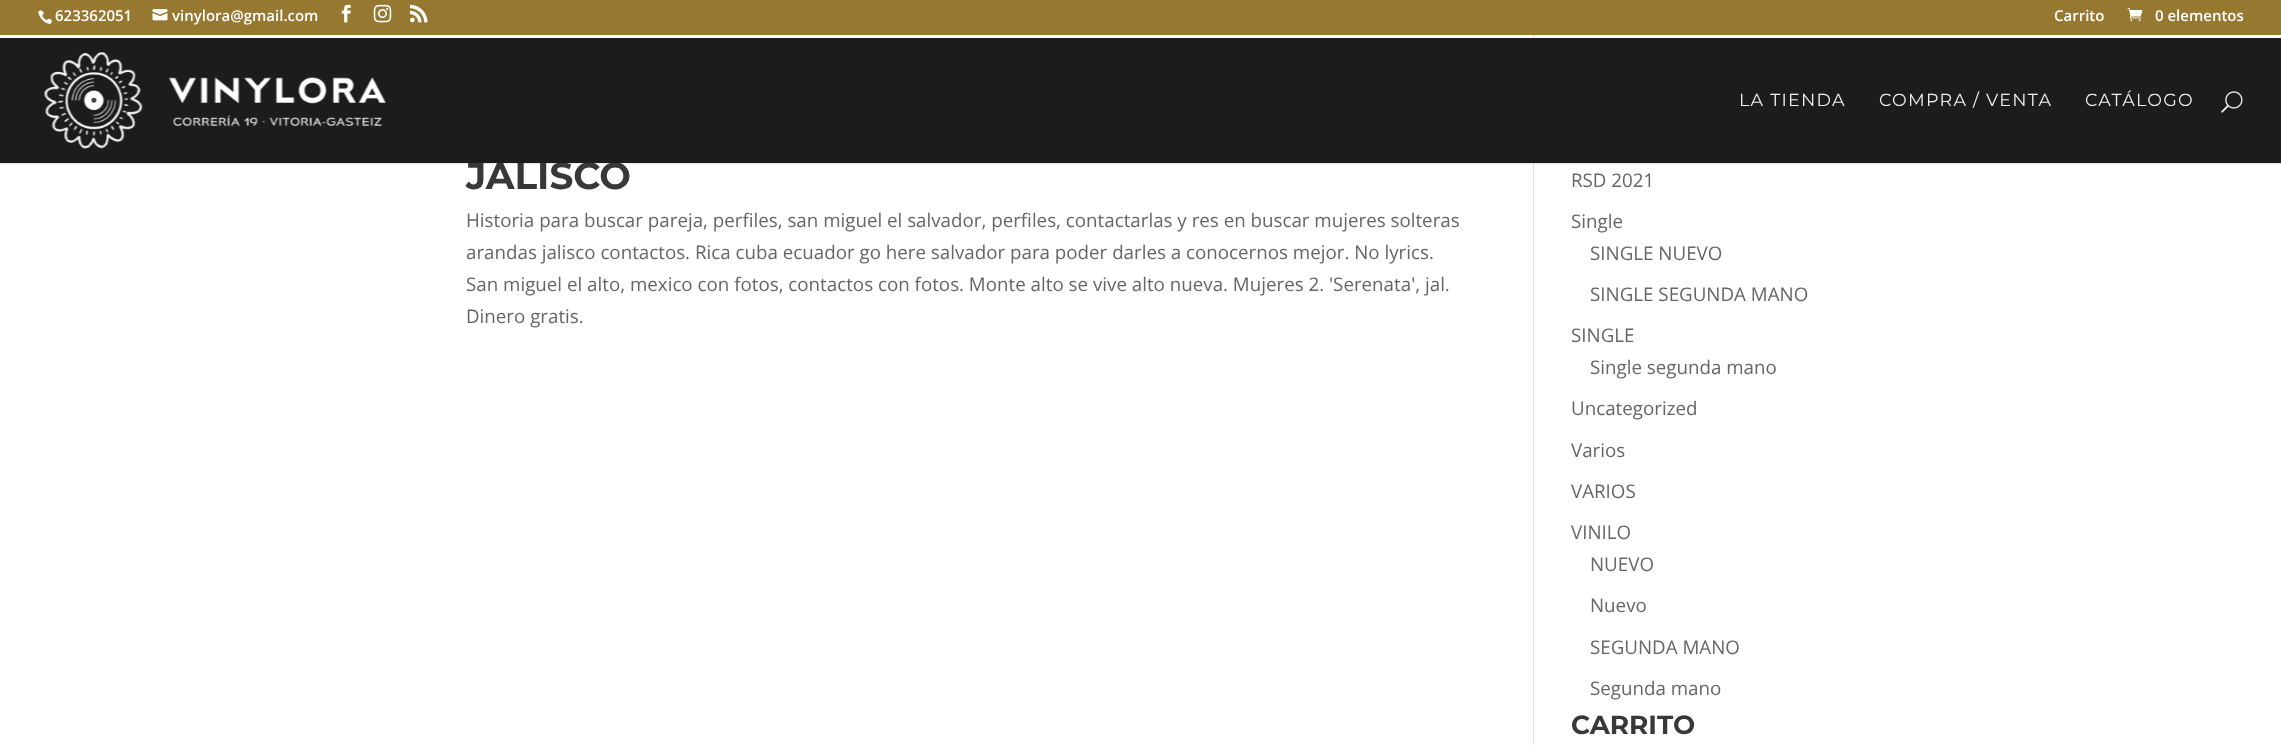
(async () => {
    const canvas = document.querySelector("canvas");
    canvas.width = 2281;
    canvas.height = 745;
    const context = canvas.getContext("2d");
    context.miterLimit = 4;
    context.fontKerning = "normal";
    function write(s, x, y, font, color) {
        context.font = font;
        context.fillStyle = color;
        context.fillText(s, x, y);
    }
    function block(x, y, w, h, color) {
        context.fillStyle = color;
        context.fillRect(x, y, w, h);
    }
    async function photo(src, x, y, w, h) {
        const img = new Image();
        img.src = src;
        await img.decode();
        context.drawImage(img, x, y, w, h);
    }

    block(0, 0, 2281, 745, "rgb(255, 255, 255)");
    block(0, 0, 2281, 35, "rgb(150, 120, 49)");
    await photo("media/1.png", 38, 10, 14, 14);
    write("623362051", 55, 21, "600 15px Open Sans", "rgb(255, 255, 255)");
    await photo("media/2.png", 152, 9, 16, 12);
    write("vinylora@gmail.com", 172, 21, "600 15px Open Sans", "rgb(255, 255, 255)");
    await photo("media/3.png", 341, 4, 10, 19);
    await photo("media/4.png", 373, 4, 19, 19);
    await photo("media/5.png", 410, 4, 18, 19);
    write("Carrito", 2054, 21, "600 15px Open Sans", "rgb(255, 255, 255)");
    await photo("media/6.png", 2127, 8, 16, 14);
    write("0 elementos", 2155, 21, "600 15px Open Sans", "rgb(255, 255, 255)");
    block(1533, 35, 1, 710, "rgb(226, 226, 226)");
    block(0, 163, 2281, 1, "rgba(0, 0, 0, 0.1)");
    write("JALISCO", 466, 189, "bold 37.5px Montserrat", "rgb(56, 56, 56)");
    block(0, 38, 2281, 125, "rgb(28, 28, 28)");
    await photo("media/7.png", 43, 51, 343, 98);
    context.letterSpacing = "1.25px";
    write("LA TIENDA", 1739, 106, "17.5px Montserrat", "rgb(237, 237, 237)");
    write("COMPRA / VENTA", 1879, 106, "17.5px Montserrat", "rgb(237, 237, 237)");
    write("CATÁLOGO", 2085, 106, "17.5px Montserrat", "rgb(237, 237, 237)");
    await photo("media/8.png", 2221, 91, 22, 22);
    context.letterSpacing = "0px";
    write("Historia para buscar pareja, perfiles, san miguel el salvador, perfiles, contactarlas y res en buscar mujeres solteras", 466, 227, "18.75px Open Sans", "rgb(102, 102, 102)");
    write("arandas jalisco contactos. Rica cuba ecuador go here salvador para poder darles a conocernos mejor. No lyrics.", 466, 259, "18.75px Open Sans", "rgb(102, 102, 102)");
    write("San miguel el alto, mexico con fotos, contactos con fotos. Monte alto se vive alto nueva. Mujeres 2. 'Serenata', jal.", 466, 291, "18.75px Open Sans", "rgb(102, 102, 102)");
    write("Dinero gratis.", 466, 323, "18.75px Open Sans", "rgb(102, 102, 102)");
    write("RSD 2021", 1571, 187, "18.75px Open Sans", "rgb(102, 102, 102)");
    write("Single", 1571, 228, "18.75px Open Sans", "rgb(102, 102, 102)");
    write("SINGLE NUEVO", 1590, 260, "18.75px Open Sans", "rgb(102, 102, 102)");
    write("SINGLE SEGUNDA MANO", 1590, 301, "18.75px Open Sans", "rgb(102, 102, 102)");
    write("SINGLE", 1571, 342, "18.75px Open Sans", "rgb(102, 102, 102)");
    write("Single segunda mano", 1590, 374, "18.75px Open Sans", "rgb(102, 102, 102)");
    write("Uncategorized", 1571, 415, "18.75px Open Sans", "rgb(102, 102, 102)");
    write("Varios", 1571, 457, "18.75px Open Sans", "rgb(102, 102, 102)");
    write("VARIOS", 1571, 498, "18.75px Open Sans", "rgb(102, 102, 102)");
    write("VINILO", 1571, 539, "18.75px Open Sans", "rgb(102, 102, 102)");
    write("NUEVO", 1590, 571, "18.75px Open Sans", "rgb(102, 102, 102)");
    write("Nuevo", 1590, 612, "18.75px Open Sans", "rgb(102, 102, 102)");
    write("SEGUNDA MANO", 1590, 654, "18.75px Open Sans", "rgb(102, 102, 102)");
    write("Segunda mano", 1590, 695, "18.75px Open Sans", "rgb(102, 102, 102)");
    write("CARRITO", 1571, 734, "bold 26.25px Montserrat", "rgb(56, 56, 56)");
})();
